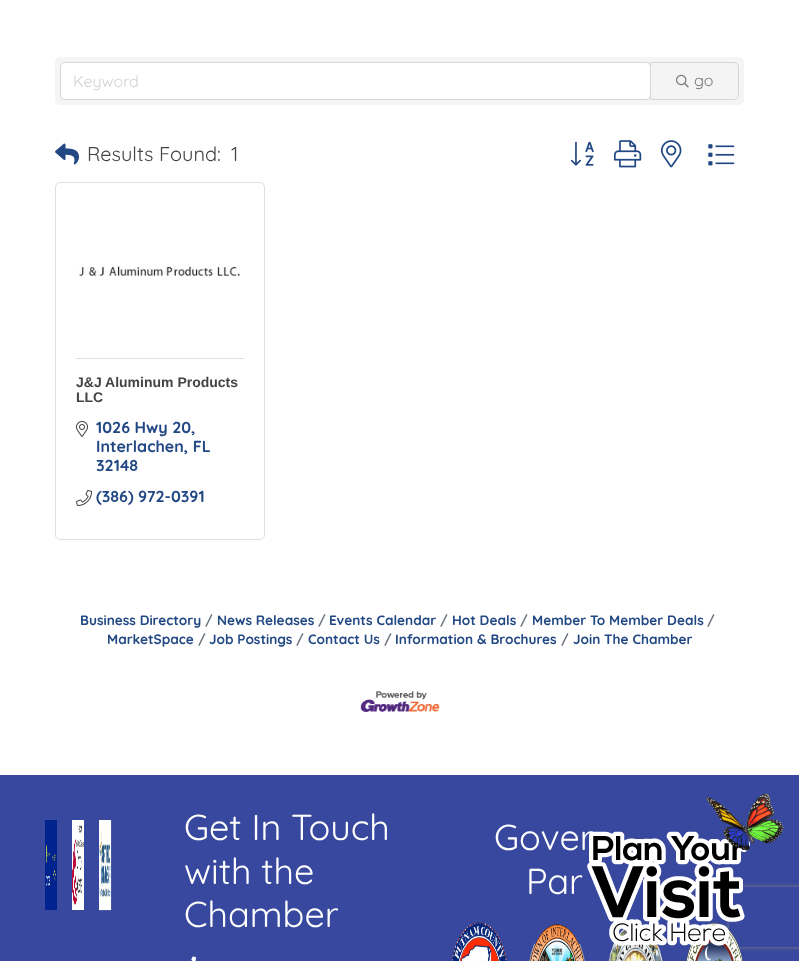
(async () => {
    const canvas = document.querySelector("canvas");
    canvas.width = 799;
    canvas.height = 961;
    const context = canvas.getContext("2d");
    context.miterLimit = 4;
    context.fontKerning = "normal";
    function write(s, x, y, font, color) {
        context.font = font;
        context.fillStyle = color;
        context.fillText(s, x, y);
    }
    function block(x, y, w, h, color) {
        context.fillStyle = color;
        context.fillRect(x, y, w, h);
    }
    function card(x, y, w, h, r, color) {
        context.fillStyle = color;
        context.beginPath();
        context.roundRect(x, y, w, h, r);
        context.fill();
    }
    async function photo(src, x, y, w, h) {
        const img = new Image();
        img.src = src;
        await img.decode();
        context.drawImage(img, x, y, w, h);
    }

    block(0, 0, 799, 961, "rgb(255, 255, 255)");
    card(55, 57, 689, 48, 5, "rgb(245, 245, 245)");
    context.fillStyle = "rgb(255, 255, 255)";
    context.beginPath();
    context.roundRect(60.5, 62.5, 590, 37, 4.5);
    context.fill();
    context.strokeStyle = "rgb(214, 214, 214)";
    context.stroke();
    write("Keyword", 73, 87, "16px Quicksand", "rgb(210, 210, 210)");
    context.fillStyle = "rgb(244, 244, 244)";
    context.beginPath();
    context.roundRect(650.5, 62.5, 88, 37, [0, 4.5, 4.5, 0]);
    context.fill();
    context.stroke();
    await photo("media/1.png", 676, 74, 13, 14);
    write("go", 694, 86, "16px Quicksand", "rgb(119, 119, 119)");
    await photo("media/2.png", 55, 143, 24, 22);
    write("Results Found:", 87, 161, "20px Quicksand", "rgb(68, 68, 68)");
    write("1", 231, 161, "20px Quicksand", "rgb(68, 68, 68)");
    await photo("media/3.png", 570, 141, 24, 25);
    await photo("media/4.png", 614, 140, 28, 28);
    await photo("media/5.png", 661, 140, 21, 28);
    await photo("media/6.png", 708, 144, 27, 22);
    context.beginPath();
    context.roundRect(55.5, 182.5, 209, 357, 4.5);
    context.strokeStyle = "rgb(223, 223, 223)";
    context.stroke();
    await photo("media/7.png", 79, 265, 161, 11);
    block(76, 358, 168, 1, "rgb(223, 223, 223)");
    write("J&J Aluminum Products", 76, 387, "bold 14px Liberation Sans", "rgb(68, 68, 68)");
    write("LLC", 76, 402, "bold 14px Liberation Sans", "rgb(68, 68, 68)");
    await photo("media/8.png", 76, 421, 12, 16);
    write("1026 Hwy 20,", 96, 433, "bold 16px Quicksand", "rgb(34, 72, 132)");
    write("Interlachen, FL", 96, 452, "bold 16px Quicksand", "rgb(34, 72, 132)");
    write("32148", 96, 471, "bold 16px Quicksand", "rgb(34, 72, 132)");
    await photo("media/9.png", 76, 490, 16, 16);
    write("(386) 972-0391", 96, 502, "bold 16px Quicksand", "rgb(34, 72, 132)");
    write("/", 707, 625, "bold 13.6px Quicksand", "rgb(108, 117, 125)");
    write("MarketSpace", 107, 644, "bold 13.6px Quicksand", "rgb(34, 72, 132)");
    write("Business Directory", 80, 625, "bold 13.6px Quicksand", "rgb(34, 72, 132)");
    write("/", 205, 625, "bold 13.6px Quicksand", "rgb(108, 117, 125)");
    write("News Releases", 217, 625, "bold 13.6px Quicksand", "rgb(34, 72, 132)");
    write("/", 318, 625, "bold 13.6px Quicksand", "rgb(108, 117, 125)");
    write("Events Calendar", 329, 625, "bold 13.6px Quicksand", "rgb(34, 72, 132)");
    write("/", 440, 625, "bold 13.6px Quicksand", "rgb(108, 117, 125)");
    write("Hot Deals", 452, 625, "bold 13.6px Quicksand", "rgb(34, 72, 132)");
    write("/", 520, 625, "bold 13.6px Quicksand", "rgb(108, 117, 125)");
    write("Member To Member Deals", 532, 625, "bold 13.6px Quicksand", "rgb(34, 72, 132)");
    write("/", 198, 644, "bold 13.6px Quicksand", "rgb(108, 117, 125)");
    write("Job Postings", 209, 644, "bold 13.6px Quicksand", "rgb(34, 72, 132)");
    write("/", 296, 644, "bold 13.6px Quicksand", "rgb(108, 117, 125)");
    write("Contact Us", 308, 644, "bold 13.6px Quicksand", "rgb(34, 72, 132)");
    write("/", 384, 644, "bold 13.6px Quicksand", "rgb(108, 117, 125)");
    write("Information & Brochures", 395, 644, "bold 13.6px Quicksand", "rgb(34, 72, 132)");
    write("/", 561, 644, "bold 13.6px Quicksand", "rgb(108, 117, 125)");
    write("Join The Chamber", 573, 644, "bold 13.6px Quicksand", "rgb(34, 72, 132)");
    await photo("media/10.png", 360, 691, 80, 21);
    block(0, 775, 799, 186, "rgb(55, 72, 158)");
    await photo("media/11.png", 45, 820, 12, 90);
    await photo("media/12.png", 72, 820, 12, 90);
    await photo("media/13.png", 99, 820, 13, 91);
    write("Get In Touch", 184, 840, "36px Quicksand", "rgb(255, 255, 255)");
    write("with the", 184, 884, "36px Quicksand", "rgb(255, 255, 255)");
    write("Chamber", 184, 927, "36px Quicksand", "rgb(255, 255, 255)");
    await photo("media/14.png", 191, 956, 5, 5);
    write("Gover", 494, 850, "36px Quicksand", "rgb(255, 255, 255)");
    write("Par", 526, 894, "36px Quicksand", "rgb(255, 255, 255)");
    await photo("media/15.png", 451, 922, 56, 39);
    await photo("media/16.png", 529, 924, 57, 37);
    await photo("media/17.png", 609, 924, 54, 37);
    context.save();
    context.beginPath();
    context.moveTo(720, 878);
    context.lineTo(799, 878);
    context.lineTo(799, 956);
    context.lineTo(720, 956);
    context.closePath();
    context.moveTo(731, 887);
    context.lineTo(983, 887);
    context.bezierCurveTo(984, 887, 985, 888, 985, 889);
    context.lineTo(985, 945);
    context.bezierCurveTo(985, 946, 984, 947, 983, 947);
    context.lineTo(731, 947);
    context.bezierCurveTo(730, 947, 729, 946, 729, 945);
    context.lineTo(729, 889);
    context.bezierCurveTo(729, 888, 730, 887, 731, 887);
    context.closePath();
    context.clip("evenodd");
    context.fillStyle = "rgb(128, 128, 128)";
    context.filter = "blur(2.5px)";
    context.beginPath();
    context.roundRect(729, 887, 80, 60, 2);
    context.fill();
    context.filter = "none";
    context.restore();
    await photo("media/18.png", 686, 922, 57, 39);
    await photo("media/19.png", 587, 793, 197, 153);
})();
